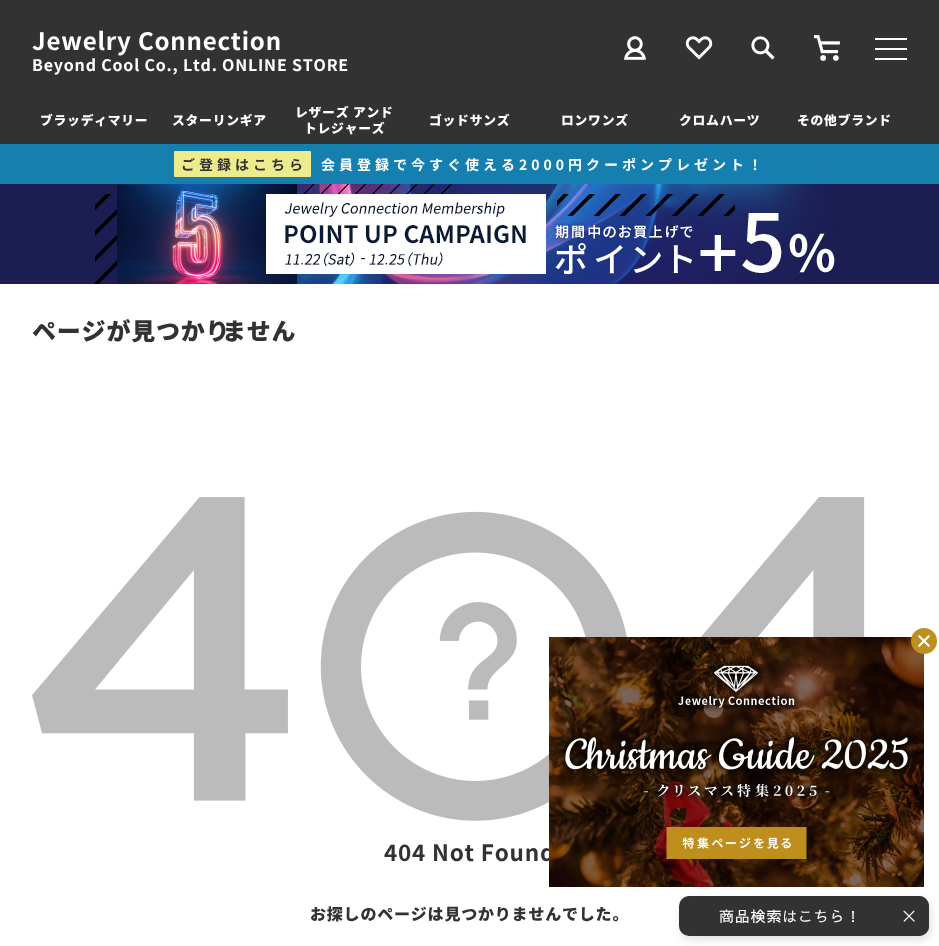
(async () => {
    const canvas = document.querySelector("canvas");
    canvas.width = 939;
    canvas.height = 946;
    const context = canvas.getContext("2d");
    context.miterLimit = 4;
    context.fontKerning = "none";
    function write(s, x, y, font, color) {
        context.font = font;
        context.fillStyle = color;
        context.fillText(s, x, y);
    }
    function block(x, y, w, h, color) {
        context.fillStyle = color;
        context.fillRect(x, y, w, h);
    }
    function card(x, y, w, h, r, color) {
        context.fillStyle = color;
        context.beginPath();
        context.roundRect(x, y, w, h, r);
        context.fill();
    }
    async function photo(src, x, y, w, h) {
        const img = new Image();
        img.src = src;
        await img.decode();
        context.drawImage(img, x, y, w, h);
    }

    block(0, 0, 939, 946, "rgb(255, 255, 255)");
    block(0, 0, 939, 144, "rgb(50, 50, 50)");
    context.letterSpacing = "0.8px";
    write("Jewelry Connection", 32, 50, "bold 24px Noto Sans JP", "rgb(255, 255, 255)");
    write("Beyond Cool Co., Ltd. ONLINE STORE", 32, 71, "bold 16px Noto Sans JP", "rgb(255, 255, 255)");
    await photo("media/1.png", 624, 36, 22, 24);
    await photo("media/2.png", 685, 36, 28, 24);
    await photo("media/3.png", 751, 36, 24, 24);
    await photo("media/4.png", 814, 35, 26, 26);
    write("ブラッディマリー", 40, 125, "900 12.75px Noto Sans JP", "rgb(255, 255, 255)");
    write("スターリンギア", 172, 125, "900 12.75px Noto Sans JP", "rgb(255, 255, 255)");
    write("レザーズ アンド", 295, 117, "900 12.75px Noto Sans JP", "rgb(255, 255, 255)");
    write("トレジャーズ", 304, 133, "900 12.75px Noto Sans JP", "rgb(255, 255, 255)");
    write("ゴッドサンズ", 429, 125, "900 12.75px Noto Sans JP", "rgb(255, 255, 255)");
    write("ロンワンズ", 561, 125, "900 12.75px Noto Sans JP", "rgb(255, 255, 255)");
    write("クロムハーツ", 679, 125, "900 12.75px Noto Sans JP", "rgb(255, 255, 255)");
    write("その他ブランド", 797, 125, "900 12.75px Noto Sans JP", "rgb(255, 255, 255)");
    block(875, 38, 32, 2, "rgb(255, 255, 255)");
    block(875, 48, 32, 2, "rgb(255, 255, 255)");
    block(875, 58, 32, 2, "rgb(255, 255, 255)");
    block(0, 144, 939, 40, "rgb(21, 127, 176)");
    card(174, 151, 137, 26, 1, "rgb(237, 236, 141)");
    context.letterSpacing = "4px";
    write("ご登録はこちら", 181, 170, "bold 14px Noto Sans JP", "rgb(50, 50, 50)");
    write("会員登録で今すぐ使える2000円クーポンプレゼント！", 321, 170, "bold 14px Noto Sans JP", "rgb(255, 255, 255)");
    block(0, 184, 939, 100, "rgb(28, 29, 83)");
    await photo("media/5.png", 95, 184, 744, 100);
    context.letterSpacing = "0.8px";
    write("ページが見つかり", 32, 340, "900 24px Noto Sans JP", "rgb(50, 50, 50)");
    write("ません", 222, 340, "900 24px Noto Sans JP", "rgb(50, 50, 50)");
    await photo("media/6.png", 32, 497, 833, 324);
    write("404 Not Found", 384, 861, "bold 22.5px Noto Sans JP", "rgb(50, 50, 50)");
    write("お探しのページは見つかりませんでした。", 310, 920, "900 16px Noto Sans JP", "rgb(50, 50, 50)");
    await photo("media/7.png", 549, 637, 375, 250);
    context.fillStyle = "rgb(190, 143, 29)";
    context.beginPath();
    context.arc(924, 641, 13, 0, Math.PI * 2);
    context.fill();
    context.fillStyle = "rgb(255, 255, 255)";
    context.beginPath();
    context.moveTo(929.5, 635.5);
    context.bezierCurveTo(930, 635.5, 930, 636.5, 929.5, 637);
    context.lineTo(920, 646.5);
    context.bezierCurveTo(919.5, 647, 918.5, 647, 918.5, 646.5);
    context.bezierCurveTo(918, 646.5, 918, 645.5, 918.5, 645);
    context.lineTo(928, 635.5);
    context.bezierCurveTo(928.5, 635, 929.5, 635, 929.5, 635.5);
    context.closePath();
    context.fill();
    context.beginPath();
    context.moveTo(918.5, 635.5);
    context.bezierCurveTo(918.5, 635, 919.5, 635, 920, 635.5);
    context.lineTo(929.5, 645);
    context.bezierCurveTo(930, 645.5, 930, 646.5, 929.5, 646.5);
    context.bezierCurveTo(929.5, 647, 928.5, 647, 928, 646.5);
    context.lineTo(918.5, 637);
    context.bezierCurveTo(918, 636.5, 918, 635.5, 918.5, 635.5);
    context.closePath();
    context.fill();
    context.fillStyle = "rgba(0, 0, 0, 0.12)";
    context.filter = "blur(4px)";
    context.beginPath();
    context.roundRect(681, 900, 250, 40, 10);
    context.fill();
    context.filter = "none";
    card(679, 896, 250, 40, 10, "rgb(50, 50, 50)");
    write("商品検索はこちら！", 719, 922, "15px Sawarabi Gothic", "rgb(255, 255, 255)");
    card(889, 896, 40, 40, 10, "rgb(50, 50, 50)");
    await photo("media/8.png", 903, 910, 12, 12);
})();
